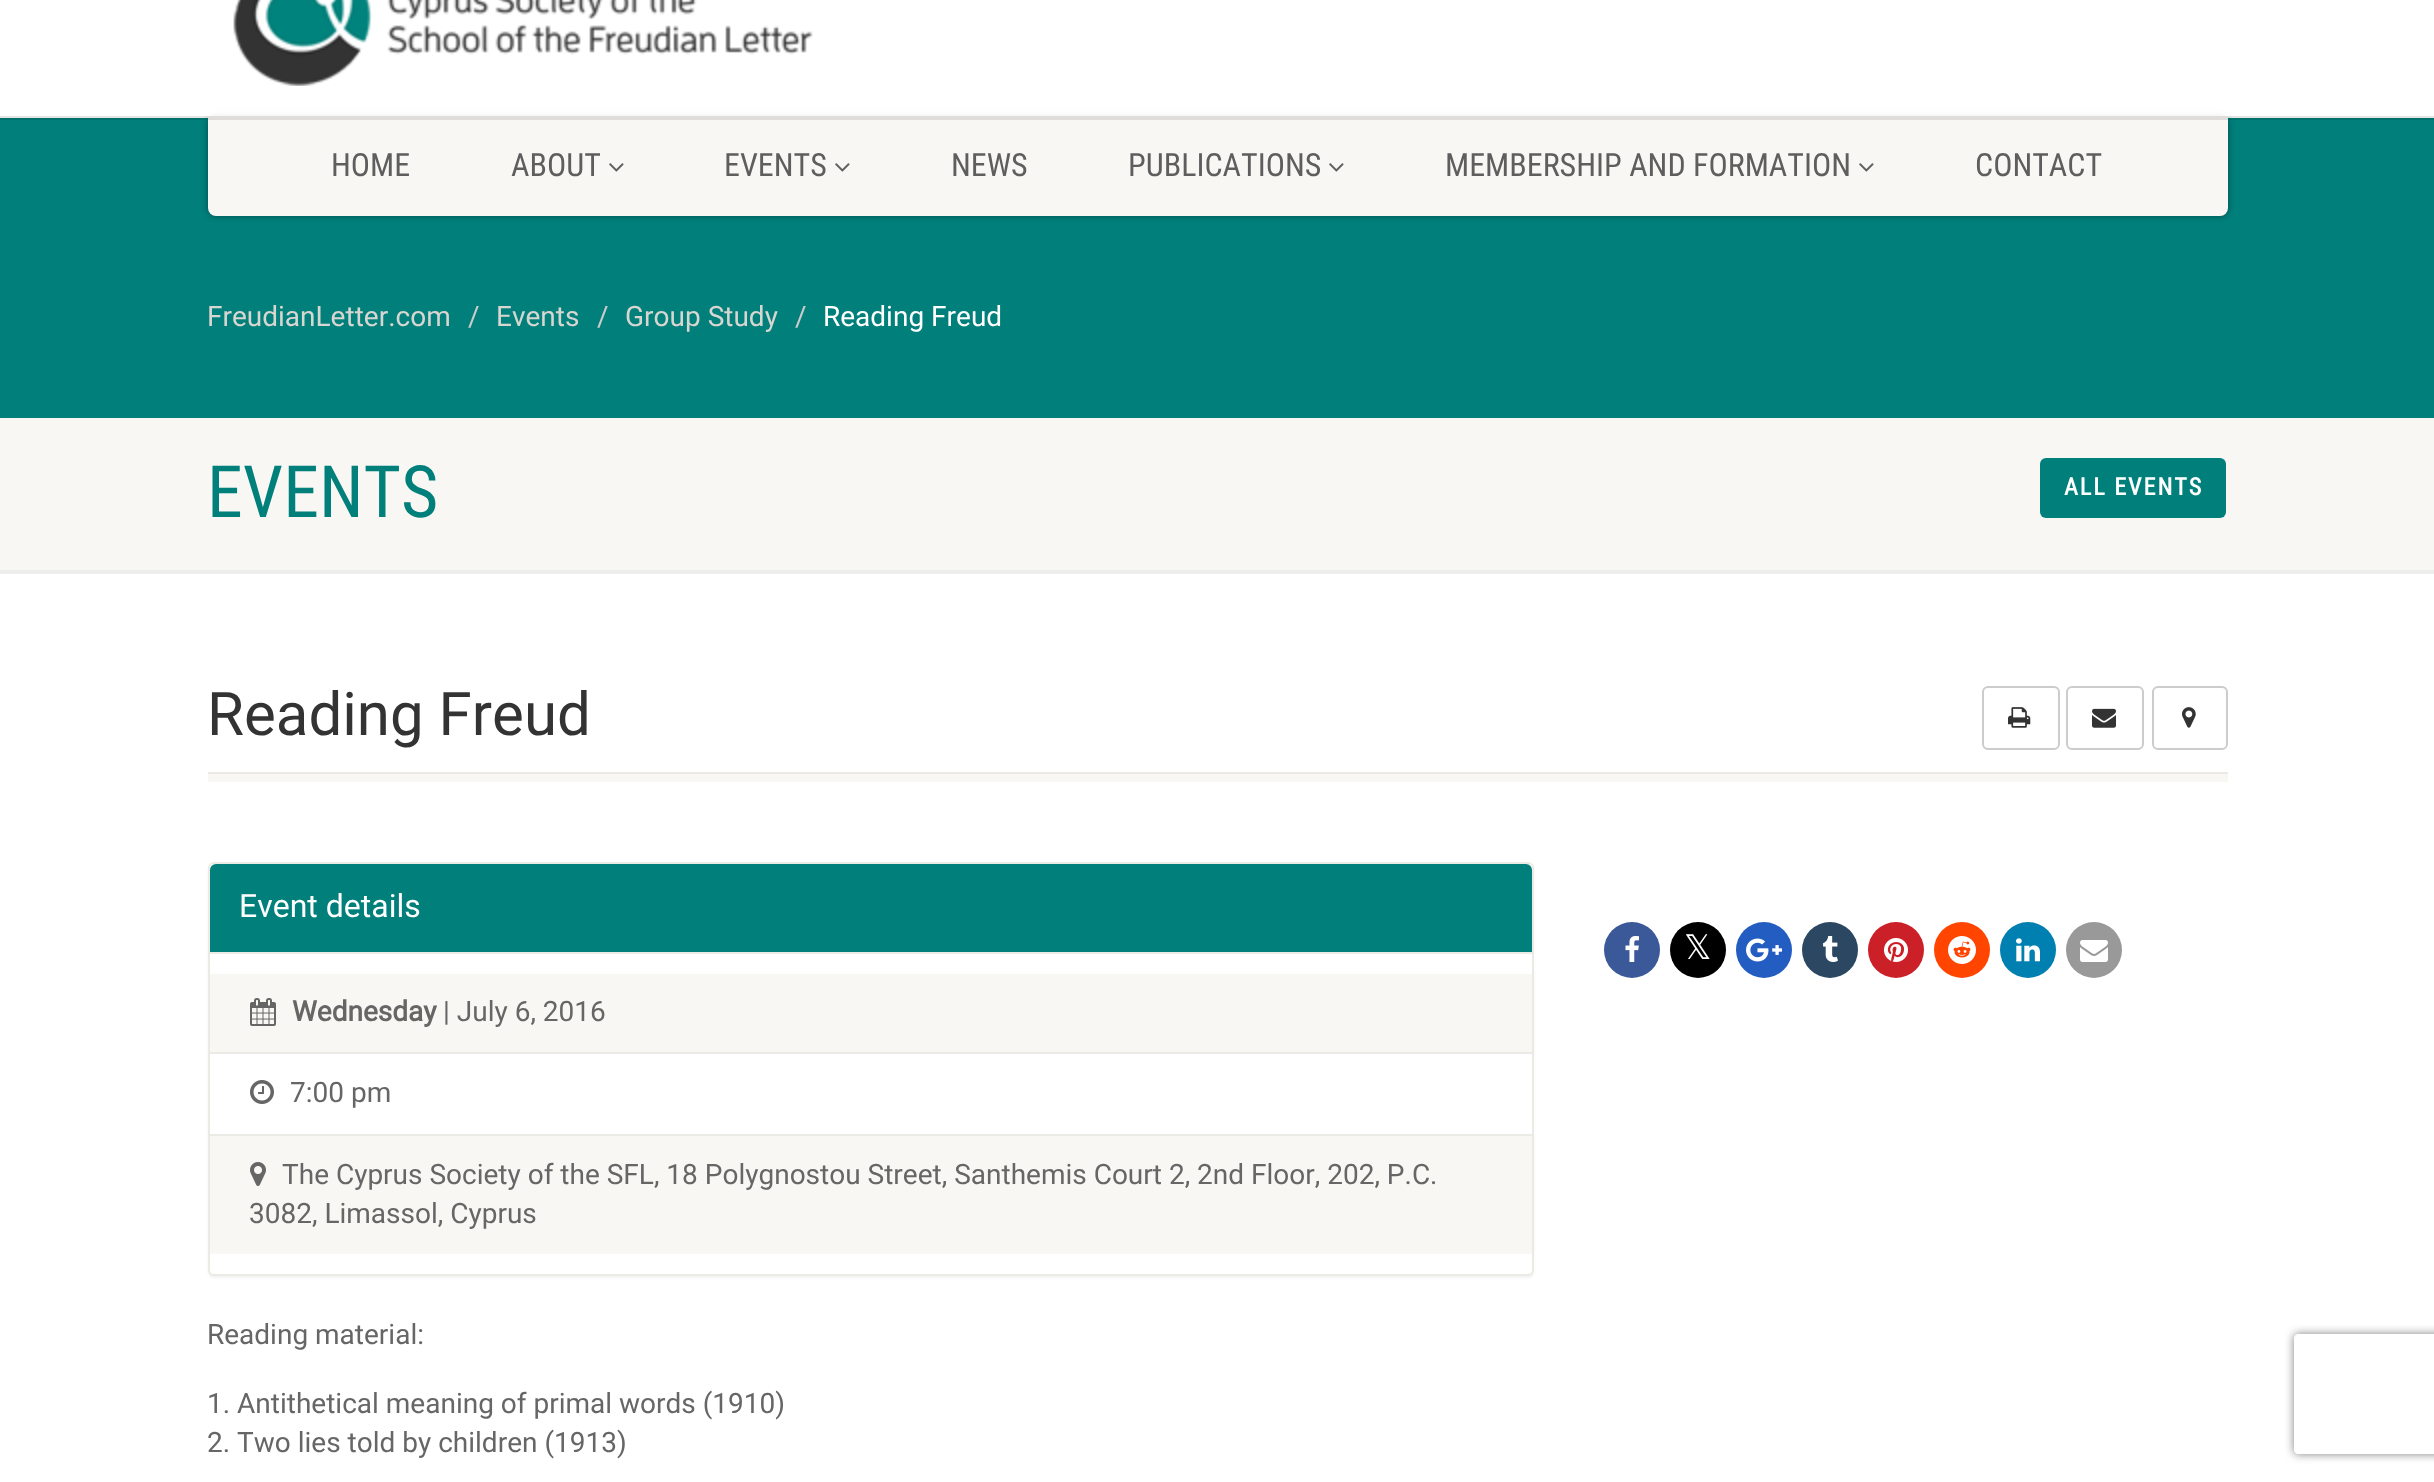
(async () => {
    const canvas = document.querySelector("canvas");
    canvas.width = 2434;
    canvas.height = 1482;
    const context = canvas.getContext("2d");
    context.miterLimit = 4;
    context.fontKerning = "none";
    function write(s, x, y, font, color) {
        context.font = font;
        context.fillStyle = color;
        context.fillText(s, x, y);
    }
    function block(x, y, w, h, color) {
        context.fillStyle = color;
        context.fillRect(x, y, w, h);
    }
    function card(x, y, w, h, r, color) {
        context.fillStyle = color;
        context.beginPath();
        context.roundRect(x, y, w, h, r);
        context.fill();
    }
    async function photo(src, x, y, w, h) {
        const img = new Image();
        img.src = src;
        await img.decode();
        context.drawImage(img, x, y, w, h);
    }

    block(0, 0, 2434, 1482, "rgb(255, 255, 255)");
    block(0, 118, 2434, 300, "rgb(0, 127, 123)");
    context.fillStyle = "rgba(0, 0, 0, 0.4)";
    context.filter = "blur(3px)";
    context.beginPath();
    context.roundRect(208, 116, 2020, 100, 8);
    context.fill();
    context.filter = "none";
    context.fillStyle = "rgb(248, 247, 243)";
    context.beginPath();
    context.roundRect(208, 116, 2020, 100, [0, 0, 8, 8]);
    context.fill();
    block(0, 116, 2434, 4, "rgba(0, 0, 0, 0.1)");
    block(206, 110, 2024, 6, "rgba(255, 255, 255, 0.8)");
    await photo("media/1.png", 233, 0, 580, 86);
    write("HOME", 331, 176, "32px Roboto Condensed", "rgb(94, 94, 94)");
    write("ABOUT", 511, 176, "32px Roboto Condensed", "rgb(94, 94, 94)");
    await photo("media/2.png", 609, 163, 15, 9);
    write("EVENTS", 724, 176, "32px Roboto Condensed", "rgb(94, 94, 94)");
    await photo("media/2.png", 835, 163, 15, 9);
    write("NEWS", 951, 176, "32px Roboto Condensed", "rgb(94, 94, 94)");
    write("PUBLICATIONS", 1128, 176, "32px Roboto Condensed", "rgb(94, 94, 94)");
    await photo("media/2.png", 1329, 163, 15, 9);
    write("MEMBERSHIP AND FORMATION", 1445, 176, "32px Roboto Condensed", "rgb(94, 94, 94)");
    await photo("media/2.png", 1859, 163, 15, 9);
    write("CONTACT", 1975, 176, "32px Roboto Condensed", "rgb(94, 94, 94)");
    write("FreudianLetter.com", 207, 326, "28px Roboto", "rgb(216, 214, 209)");
    write("/", 468, 326, "28px Roboto", "rgb(204, 204, 204)");
    write("Events", 496, 326, "28px Roboto", "rgb(216, 214, 209)");
    write("/", 597, 326, "28px Roboto", "rgb(204, 204, 204)");
    write("Group Study", 625, 326, "28px Roboto", "rgb(216, 214, 209)");
    write("/", 795, 326, "28px Roboto", "rgb(204, 204, 204)");
    write("Reading Freud", 823, 326, "28px Roboto", "rgb(255, 255, 255)");
    block(0, 570, 2434, 4, "rgb(237, 237, 237)");
    block(0, 418, 2434, 152, "rgb(248, 247, 243)");
    write("EVENTS", 207, 517, "72px Roboto Condensed", "rgb(0, 127, 123)");
    card(2040, 458, 186, 60, 6, "rgb(0, 127, 123)");
    context.letterSpacing = "2px";
    write("ALL EVENTS", 2064, 495, "bold 24px Roboto Condensed", "rgb(255, 255, 255)");
    block(208, 772, 2020, 2, "rgb(236, 234, 228)");
    context.letterSpacing = "0px";
    write("Reading Freud", 207, 735, "60px Roboto", "rgb(51, 51, 51)");
    context.beginPath();
    context.roundRect(1983, 687, 76, 62, 5);
    context.strokeStyle = "rgb(204, 204, 204)";
    context.lineWidth = 2;
    context.stroke();
    await photo("media/3.png", 2008, 707, 23, 21);
    context.beginPath();
    context.roundRect(2067, 687, 76, 62, 5);
    context.stroke();
    await photo("media/4.png", 2092, 708, 24, 20);
    context.beginPath();
    context.roundRect(2153, 687, 74, 62, 5);
    context.stroke();
    await photo("media/5.png", 2182, 707, 14, 21);
    block(208, 774, 2020, 8, "rgb(248, 247, 243)");
    context.fillStyle = "rgba(0, 0, 0, 0.05)";
    context.filter = "blur(1px)";
    context.beginPath();
    context.roundRect(208, 864, 1326, 414, 6);
    context.fill();
    context.filter = "none";
    context.fillStyle = "rgb(255, 255, 255)";
    context.beginPath();
    context.roundRect(209, 863, 1324, 412, 5);
    context.fill();
    context.strokeStyle = "rgb(236, 234, 228)";
    context.stroke();
    context.fillStyle = "rgb(0, 127, 123)";
    context.beginPath();
    context.roundRect(210, 864, 1322, 90, [6, 6, 0, 0]);
    context.fill();
    block(210, 952, 1322, 2, "rgb(236, 234, 228)");
    write("Event details", 239, 917, "32px Roboto", "rgb(255, 255, 255)");
    block(210, 974, 1322, 78, "rgb(248, 247, 243)");
    block(210, 1052, 1322, 2, "rgb(236, 234, 228)");
    await photo("media/6.png", 250, 998, 26, 28);
    write("Wednesday", 292, 1021, "bold 28px Roboto", "rgb(102, 102, 102)");
    write("| July 6, 2016", 443, 1021, "28px Roboto", "rgb(102, 102, 102)");
    block(210, 1134, 1322, 2, "rgb(236, 234, 228)");
    await photo("media/7.png", 250, 1080, 24, 24);
    write("7:00 pm", 290, 1102, "28px Roboto", "rgb(102, 102, 102)");
    block(210, 1136, 1322, 118, "rgb(248, 247, 243)");
    await photo("media/8.png", 250, 1162, 16, 24);
    write("The Cyprus Society of the SFL, 18 Polygnostou Street, Santhemis Court 2, 2nd Floor, 202, P.C.", 282, 1184, "28px Roboto", "rgb(102, 102, 102)");
    write("3082, Limassol, Cyprus", 249, 1223, "28px Roboto", "rgb(102, 102, 102)");
    context.fillStyle = "rgb(59, 89, 152)";
    context.beginPath();
    context.arc(1632, 950, 28, 0, Math.PI * 2);
    context.fill();
    await photo("media/9.png", 1625, 936, 14, 26);
    context.fillStyle = "rgb(0, 0, 0)";
    context.beginPath();
    context.arc(1698, 950, 28, 0, Math.PI * 2);
    context.fill();
    write("𝕏", 1684, 959, "34px DejaVu Sans", "rgb(255, 255, 255)");
    context.fillStyle = "rgb(36, 93, 193)";
    context.beginPath();
    context.arc(1764, 950, 28, 0, Math.PI * 2);
    context.fill();
    await photo("media/10.png", 1746, 938, 36, 24);
    context.fillStyle = "rgb(44, 71, 98)";
    context.beginPath();
    context.arc(1830, 950, 28, 0, Math.PI * 2);
    context.fill();
    await photo("media/11.png", 1823, 936, 15, 26);
    context.fillStyle = "rgb(203, 32, 39)";
    context.beginPath();
    context.arc(1896, 950, 28, 0, Math.PI * 2);
    context.fill();
    await photo("media/12.png", 1884, 938, 24, 24);
    context.fillStyle = "rgb(255, 69, 0)";
    context.beginPath();
    context.arc(1962, 950, 28, 0, Math.PI * 2);
    context.fill();
    await photo("media/13.png", 1948, 936, 28, 28);
    context.fillStyle = "rgb(0, 127, 177)";
    context.beginPath();
    context.arc(2028, 950, 28, 0, Math.PI * 2);
    context.fill();
    await photo("media/14.png", 2016, 938, 24, 24);
    context.fillStyle = "rgb(153, 153, 153)";
    context.beginPath();
    context.arc(2094, 950, 28, 0, Math.PI * 2);
    context.fill();
    await photo("media/15.png", 2080, 940, 28, 22);
    write("Reading material:", 207, 1344, "28px Roboto", "rgb(102, 102, 102)");
    write("1. Antithetical meaning of primal words (1910)", 207, 1413, "28px Roboto", "rgb(102, 102, 102)");
    write("2. Two lies told by children (1913)", 207, 1452, "28px Roboto", "rgb(102, 102, 102)");
    context.save();
    context.beginPath();
    context.moveTo(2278, 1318);
    context.lineTo(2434, 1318);
    context.lineTo(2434, 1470);
    context.lineTo(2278, 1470);
    context.closePath();
    context.moveTo(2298, 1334);
    context.lineTo(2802, 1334);
    context.bezierCurveTo(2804, 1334, 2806, 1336, 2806, 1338);
    context.lineTo(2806, 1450);
    context.bezierCurveTo(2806, 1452, 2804, 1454, 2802, 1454);
    context.lineTo(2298, 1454);
    context.bezierCurveTo(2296, 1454, 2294, 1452, 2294, 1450);
    context.lineTo(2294, 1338);
    context.bezierCurveTo(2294, 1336, 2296, 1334, 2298, 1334);
    context.closePath();
    context.clip("evenodd");
    context.fillStyle = "rgb(128, 128, 128)";
    context.filter = "blur(5px)";
    context.beginPath();
    context.roundRect(2294, 1334, 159, 120, 4);
    context.fill();
    context.filter = "none";
    context.restore();
})();
